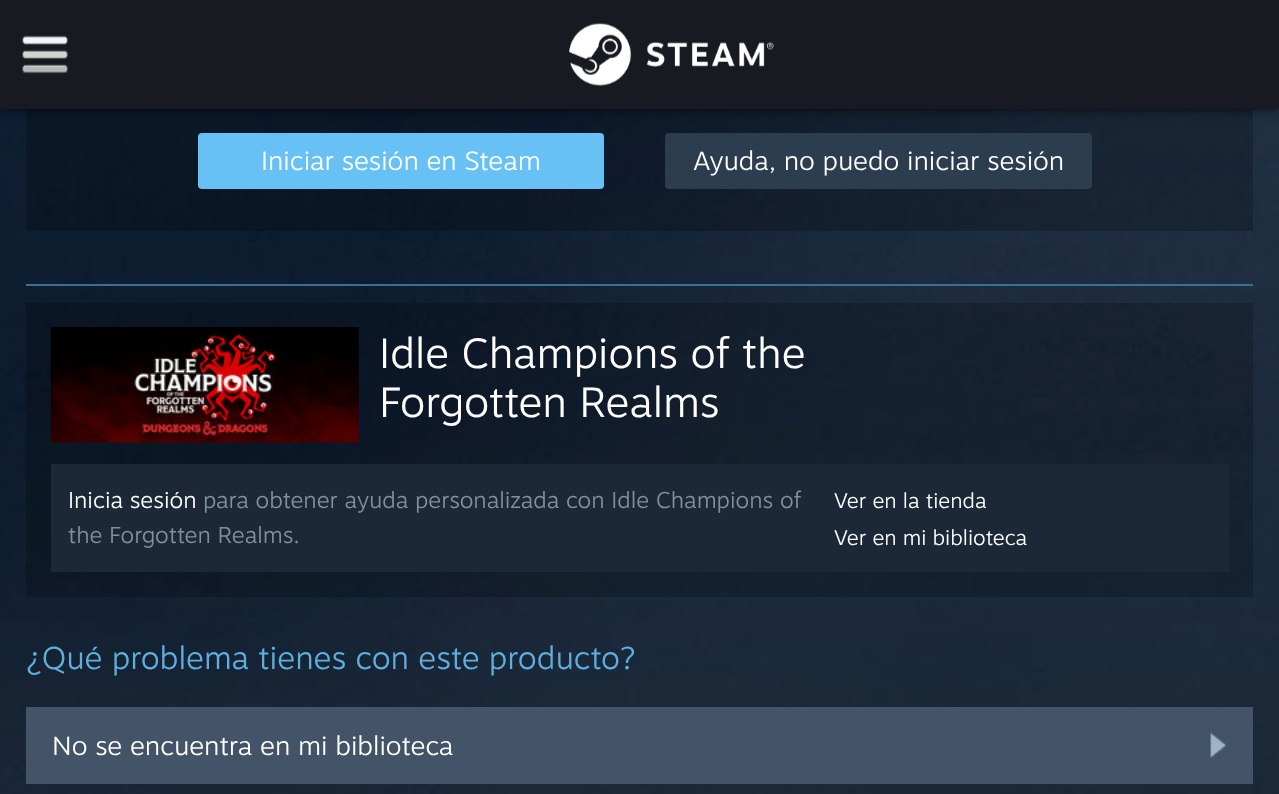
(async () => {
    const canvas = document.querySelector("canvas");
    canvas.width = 1279;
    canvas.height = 794;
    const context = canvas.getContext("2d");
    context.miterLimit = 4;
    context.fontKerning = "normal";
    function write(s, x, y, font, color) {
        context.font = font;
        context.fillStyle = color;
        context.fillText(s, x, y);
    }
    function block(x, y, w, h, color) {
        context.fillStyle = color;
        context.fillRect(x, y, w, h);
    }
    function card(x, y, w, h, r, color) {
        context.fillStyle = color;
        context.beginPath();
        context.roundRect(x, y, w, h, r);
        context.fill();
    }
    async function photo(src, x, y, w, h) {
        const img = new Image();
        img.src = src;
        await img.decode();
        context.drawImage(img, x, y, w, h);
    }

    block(0, 0, 1279, 794, "rgb(255, 255, 255)");
    await photo("media/1.png", 0, 109, 1279, 685);
    block(26, 109, 1227, 122, "rgba(0, 0, 0, 0.2)");
    context.fillStyle = "rgba(0, 0, 0, 0.75)";
    context.filter = "blur(6px)";
    context.beginPath();
    context.rect(0, 0, 1279, 109);
    context.fill();
    context.filter = "none";
    block(0, 0, 1279, 109, "rgb(23, 26, 33)");
    await photo("media/2.png", 22, 35, 46, 39);
    await photo("media/3.png", 569, 23, 205, 63);
    card(198, 133, 406, 56, 4, "rgb(103, 193, 245)");
    write("Iniciar sesión en Steam", 261, 170, "300 26.25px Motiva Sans", "rgb(255, 255, 255)");
    card(665, 133, 427, 56, 4, "rgb(45, 61, 80)");
    write("Ayuda, no puedo iniciar sesión", 693, 170, "300 26.25px Motiva Sans", "rgb(255, 255, 255)");
    block(26, 284, 1227, 2, "rgb(59, 113, 141)");
    block(26, 303, 1227, 294, "rgba(0, 0, 0, 0.2)");
    await photo("media/4.png", 50, 327, 309, 116);
    write("Idle Champions of the", 379, 368, "300 42px Motiva Sans", "rgb(255, 255, 255)");
    write("Forgotten Realms", 379, 417, "300 42px Motiva Sans", "rgb(255, 255, 255)");
    block(51, 464, 1178, 108, "rgb(28, 40, 55)");
    write("Inicia sesión", 68, 508, "300 22.75px Motiva Sans", "rgb(255, 255, 255)");
    write("para obtener ayuda personalizada con Idle Champions of", 203, 508, "300 22.75px Motiva Sans", "rgb(130, 144, 154)");
    write("the Forgotten Realms.", 68, 543, "300 22.75px Motiva Sans", "rgb(130, 144, 154)");
    write("Ver en la tienda", 834, 508, "300 21px Motiva Sans", "rgb(255, 255, 255)");
    write("Ver en mi biblioteca", 834, 545, "300 21px Motiva Sans", "rgb(255, 255, 255)");
    write("¿Qué problema tienes con este producto?", 26, 669, "300 31.5px Motiva Sans", "rgb(94, 175, 222)");
    block(26, 707, 1227, 77, "rgb(68, 84, 104)");
    await photo("media/5.png", 1210, 732, 16, 26);
    write("No se encuentra en mi biblioteca", 52, 755, "300 26.25px Motiva Sans", "rgb(255, 255, 255)");
})();
